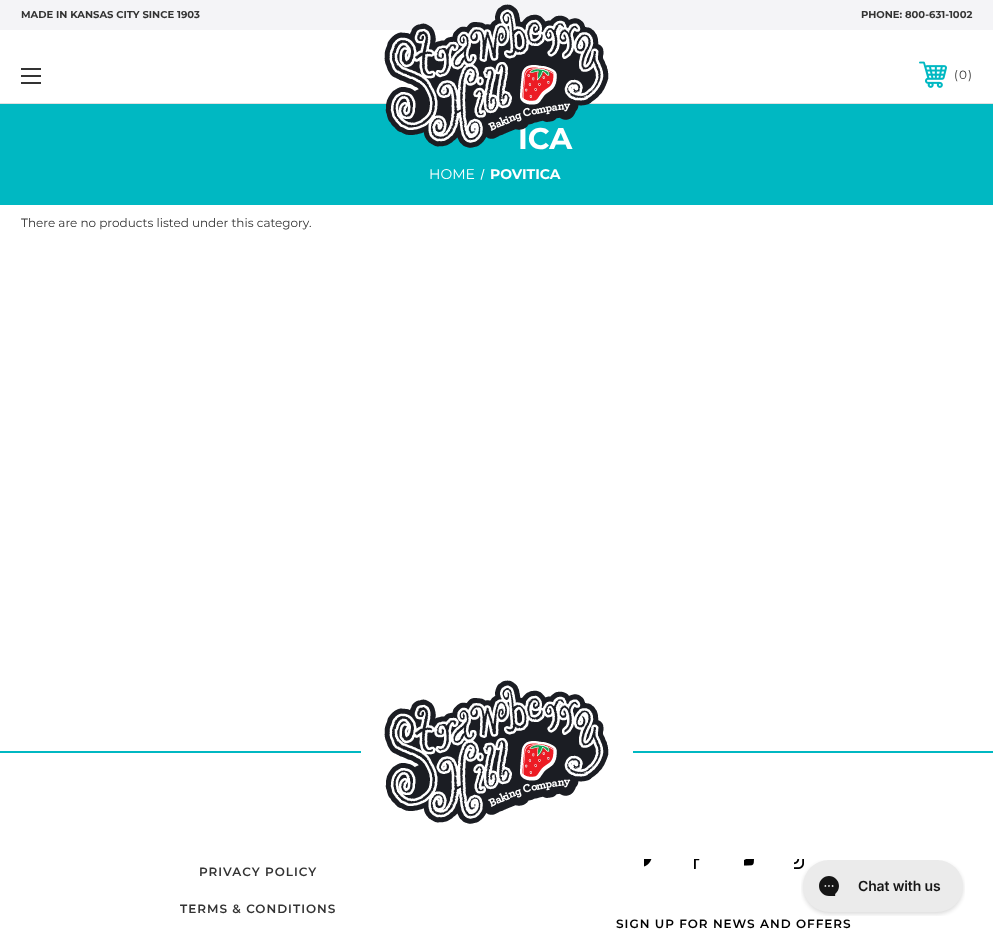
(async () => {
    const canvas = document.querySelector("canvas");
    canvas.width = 993;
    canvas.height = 939;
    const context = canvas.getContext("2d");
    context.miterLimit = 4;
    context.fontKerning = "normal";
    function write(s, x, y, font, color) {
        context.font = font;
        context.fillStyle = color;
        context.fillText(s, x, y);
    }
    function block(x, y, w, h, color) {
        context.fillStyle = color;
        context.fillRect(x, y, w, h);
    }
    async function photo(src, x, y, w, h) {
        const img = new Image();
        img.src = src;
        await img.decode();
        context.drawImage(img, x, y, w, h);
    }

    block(0, 0, 993, 939, "rgb(255, 255, 255)");
    block(0, 0, 993, 30, "rgb(244, 244, 247)");
    write("MADE IN KANSAS CITY SINCE 1903", 21, 18, "bold 10px Montserrat", "rgb(51, 51, 51)");
    write("PHONE: 800-631-1002", 861, 18, "bold 10px Montserrat", "rgb(51, 51, 51)");
    block(0, 103, 993, 1, "rgb(225, 225, 225)");
    block(21, 75, 20, 2, "rgb(51, 51, 51)");
    block(21, 68, 20, 2, "rgb(51, 51, 51)");
    block(21, 82, 20, 2, "rgb(51, 51, 51)");
    block(0, 104, 993, 101, "rgb(0, 184, 194)");
    write("ICA", 518, 149, "bold 30px Montserrat", "rgb(255, 255, 255)");
    await photo("media/1.png", 384, 4, 225, 144);
    await photo("media/2.png", 919, 61, 28, 27);
    write("(", 954, 79, "12px Montserrat", "rgb(51, 51, 51)");
    write("0", 959, 79, "12px Montserrat", "rgb(51, 51, 51)");
    write(")", 968, 79, "12px Montserrat", "rgb(51, 51, 51)");
    write("HOME", 429, 179, "14px Montserrat", "rgb(255, 255, 255)");
    context.beginPath();
    context.moveTo(483.5, 169);
    context.lineTo(484.5, 169);
    context.lineTo(481.5, 180);
    context.lineTo(480.5, 179.5);
    context.closePath();
    context.fill();
    write("POVITICA", 490, 179, "bold 14px Montserrat", "rgb(255, 255, 255)");
    write("There are no products listed under this category.", 21, 227, "12px Montserrat", "rgb(51, 51, 51)");
    block(0, 751, 993, 2, "rgb(0, 184, 194)");
    block(361, 751, 272, 2, "rgb(255, 255, 255)");
    await photo("media/3.png", 384, 680, 225, 144);
    context.letterSpacing = "1px";
    write("PRIVACY POLICY", 199, 876, "600 12px Montserrat", "rgb(51, 51, 51)");
    write("TERMS & CONDITIONS", 180, 913, "600 12px Montserrat", "rgb(51, 51, 51)");
    await photo("media/4.png", 644, 859, 8, 8);
    await photo("media/5.png", 694, 859, 6, 10);
    await photo("media/6.png", 744, 859, 10, 7);
    await photo("media/7.png", 794, 859, 10, 10);
    write("SIGN UP FOR NEWS AND OFFERS", 616, 928, "600 12px Montserrat", "rgb(0, 0, 0)");
    await photo("media/8.png", 801, 860, 164, 56);
})();
